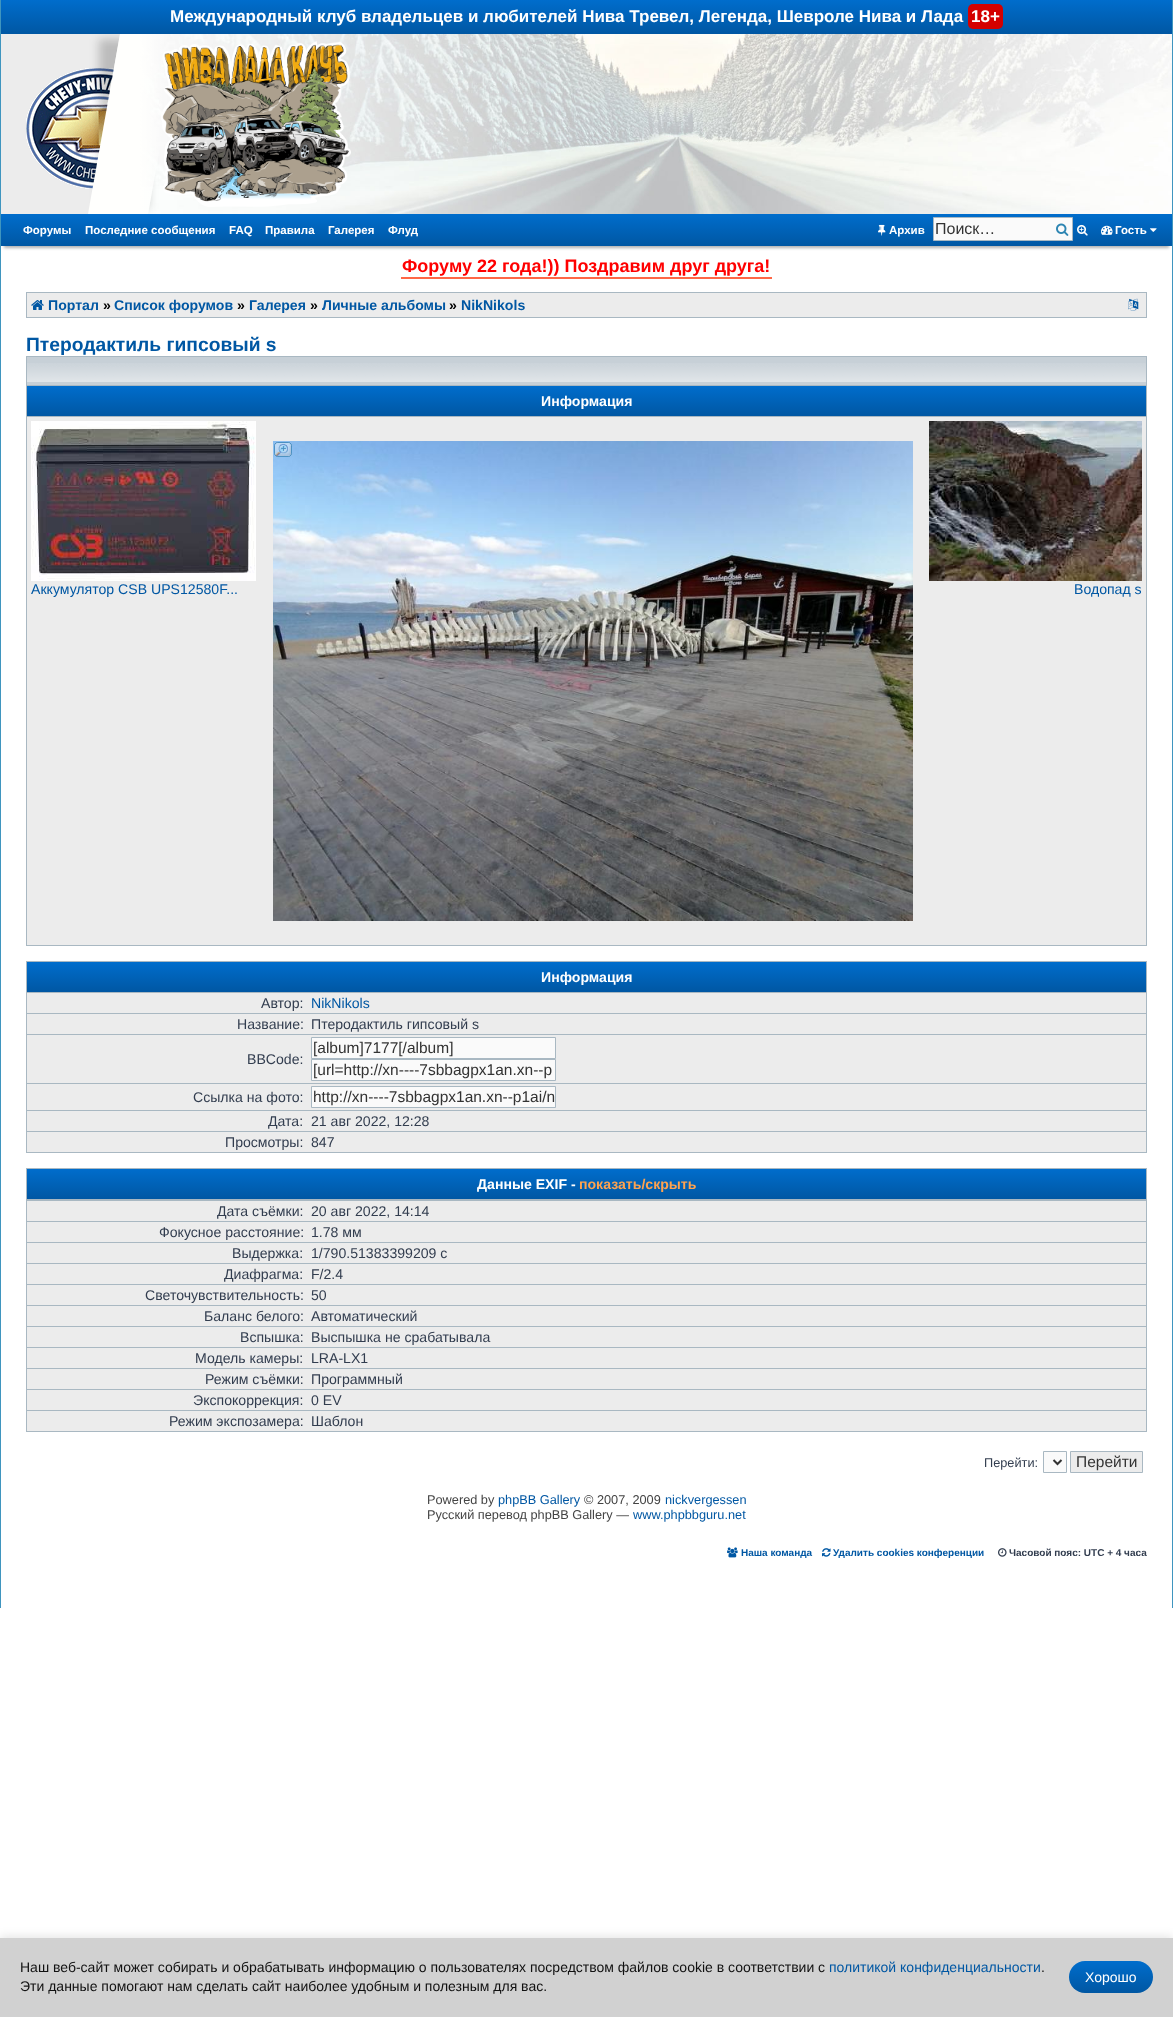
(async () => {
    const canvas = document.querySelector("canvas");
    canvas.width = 1173;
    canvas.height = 2017;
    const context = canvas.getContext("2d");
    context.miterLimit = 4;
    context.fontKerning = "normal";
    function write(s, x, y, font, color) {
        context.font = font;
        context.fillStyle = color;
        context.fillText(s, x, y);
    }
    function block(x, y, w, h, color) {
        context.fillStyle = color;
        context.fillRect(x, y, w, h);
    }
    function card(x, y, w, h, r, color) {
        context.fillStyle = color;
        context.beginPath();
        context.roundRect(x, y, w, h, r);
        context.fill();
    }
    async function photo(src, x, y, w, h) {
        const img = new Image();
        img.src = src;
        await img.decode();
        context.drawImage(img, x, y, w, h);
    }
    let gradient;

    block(0, 0, 1173, 2017, "rgb(255, 255, 255)");
    block(1172, 0, 1, 1608, "rgb(63, 149, 191)");
    block(0, 0, 1, 1608, "rgb(63, 149, 191)");
    gradient = context.createLinearGradient(587, 34, 587, 0);
    gradient.addColorStop(0, "rgb(0, 87, 163)");
    gradient.addColorStop(1, "rgb(0, 109, 204)");
    context.fillStyle = gradient;
    context.fillRect(1, 0, 1171, 34);
    write("Международный клуб владельцев и любителей Нива Тревел, Легенда, Шевроле Нива и Лада", 170, 22, "bold 17px Liberation Sans", "rgb(255, 255, 255)");
    card(968, 4, 35, 25, 5, "rgb(212, 0, 0)");
    write("18+", 971, 22, "bold 17px Liberation Sans", "rgb(255, 255, 255)");
    block(1, 34, 119, 180, "rgb(236, 236, 236)");
    await photo("media/1.png", 26, 68, 88, 121);
    await photo("media/2.png", 140, 34, 1032, 180);
    await photo("media/3.png", 161, 41, 190, 166);
    context.save();
    context.beginPath();
    context.rect(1, 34, 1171, 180);
    context.clip();
    context.beginPath();
    context.moveTo(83, 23);
    context.lineTo(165, 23);
    context.lineTo(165, 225);
    context.lineTo(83, 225);
    context.closePath();
    context.moveTo(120, 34);
    context.lineTo(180, 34);
    context.lineTo(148, 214);
    context.lineTo(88, 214);
    context.closePath();
    context.clip("evenodd");
    context.fillStyle = "rgba(0, 0, 0, 0.2)";
    context.filter = "blur(5px)";
    context.beginPath();
    context.rect(99, 39, 50, 170);
    context.fill();
    context.filter = "none";
    context.restore();
    gradient = context.createLinearGradient(104, 124, 164, 124);
    gradient.addColorStop(0.6, "rgb(255, 255, 253)");
    gradient.addColorStop(1, "rgba(255, 255, 253, 0)");
    context.fillStyle = gradient;
    context.beginPath();
    context.moveTo(120, 34);
    context.lineTo(180, 34);
    context.lineTo(148, 214);
    context.lineTo(88, 214);
    context.closePath();
    context.fill();
    context.fillStyle = "rgba(0, 0, 0, 0.3)";
    context.filter = "blur(1.5px)";
    context.beginPath();
    context.rect(4, 222, 1165, 26);
    context.fill();
    context.filter = "none";
    gradient = context.createLinearGradient(587, 246, 587, 214);
    gradient.addColorStop(0, "rgb(0, 87, 163)");
    gradient.addColorStop(1, "rgb(0, 109, 204)");
    context.fillStyle = gradient;
    context.fillRect(1, 214, 1171, 32);
    write("Форумы", 23, 234, "bold 11.5px Liberation Sans", "rgb(255, 255, 255)");
    write("Последние сообщения", 85, 234, "bold 11.5px Liberation Sans", "rgb(255, 255, 255)");
    write("FAQ", 229, 234, "bold 11.5px Liberation Sans", "rgb(255, 255, 255)");
    write("Правила", 265, 234, "bold 11.5px Liberation Sans", "rgb(255, 255, 255)");
    write("Галерея", 328, 234, "bold 11.5px Liberation Sans", "rgb(255, 255, 255)");
    write("Флуд", 388, 234, "bold 11.5px Liberation Sans", "rgb(255, 255, 255)");
    await photo("media/4.png", 878, 224, 8, 12);
    write("Архив", 889, 234, "bold 11.5px Liberation Sans", "rgb(255, 255, 255)");
    context.fillStyle = "rgb(250, 250, 250)";
    context.beginPath();
    context.rect(933.5, 217.5, 139, 23);
    context.fill();
    context.strokeStyle = "rgb(169, 184, 194)";
    context.stroke();
    write("Поиск…", 935, 234, "16px Liberation Sans", "rgb(51, 51, 51)");
    await photo("media/5.png", 1056, 223, 13, 13);
    await photo("media/6.png", 1077, 224, 11, 12);
    await photo("media/7.png", 1101, 225, 12, 10);
    write("Гость", 1115, 234, "bold 11.5px Liberation Sans", "rgb(255, 255, 255)");
    await photo("media/8.png", 1150, 228, 7, 4);
    write("Форуму 22 года!)) Поздравим друг друга!", 402, 272, "bold 18px Liberation Sans", "rgb(255, 0, 0)");
    block(401, 277, 371, 2, "rgb(255, 103, 70)");
    block(26, 292, 1121, 26, "rgb(169, 184, 194)");
    block(27, 293, 1119, 24, "rgb(236, 236, 236)");
    await photo("media/9.png", 31, 300, 13, 10);
    write("Портал", 48, 310, "bold 14.1px Liberation Sans", "rgb(0, 87, 163)");
    write("»", 103, 310, "bold 14.1px Liberation Sans", "rgb(0, 0, 0)");
    write("Список форумов", 114, 310, "bold 14.1px Liberation Sans", "rgb(0, 87, 163)");
    write("»", 237, 310, "bold 14.1px Liberation Sans", "rgb(0, 0, 0)");
    write("Галерея", 249, 310, "bold 14.1px Liberation Sans", "rgb(0, 87, 163)");
    write("»", 310, 310, "bold 14.1px Liberation Sans", "rgb(0, 0, 0)");
    write("Личные альбомы", 322, 310, "bold 14.1px Liberation Sans", "rgb(0, 87, 163)");
    write("»", 449, 310, "bold 14.1px Liberation Sans", "rgb(0, 0, 0)");
    write("NikNikols", 461, 310, "bold 14.1px Liberation Sans", "rgb(0, 87, 163)");
    await photo("media/10.png", 1128, 298, 11, 13);
    write("Птеродактиль гипсовый s", 26, 351, "bold 19.25px Liberation Sans", "rgb(0, 87, 163)");
    block(26, 356, 1121, 590, "rgb(169, 184, 194)");
    block(27, 357, 1119, 28, "rgb(199, 208, 215)");
    await photo("media/11.png", 27, 363, 1119, 19);
    gradient = context.createLinearGradient(587, 416, 587, 386);
    gradient.addColorStop(0, "rgb(0, 87, 163)");
    gradient.addColorStop(1, "rgb(0, 109, 204)");
    context.fillStyle = gradient;
    context.fillRect(27, 386, 1119, 30);
    write("Информация", 541, 406, "bold 14.1px Liberation Sans", "rgb(255, 255, 255)");
    block(27, 417, 1119, 528, "rgb(236, 236, 236)");
    await photo("media/12.png", 31, 421, 225, 160);
    write("Аккумулятор CSB UPS12580F...", 31, 594, "14.1px Liberation Sans", "rgb(0, 87, 163)");
    await photo("media/13.png", 273, 441, 640, 480);
    await photo("media/14.png", 274, 442, 18, 15);
    await photo("media/15.png", 929, 421, 213, 160);
    write("Водопад s", 1074, 594, "14.1px Liberation Sans", "rgb(0, 87, 163)");
    block(26, 961, 1121, 192, "rgb(169, 184, 194)");
    gradient = context.createLinearGradient(587, 992, 587, 962);
    gradient.addColorStop(0, "rgb(0, 87, 163)");
    gradient.addColorStop(1, "rgb(0, 109, 204)");
    context.fillStyle = gradient;
    context.fillRect(27, 962, 1119, 30);
    write("Информация", 541, 982, "bold 14.1px Liberation Sans", "rgb(255, 255, 255)");
    block(27, 993, 1119, 20, "rgb(236, 236, 236)");
    write("Автор:", 261, 1008, "14.1px Liberation Sans", "rgb(50, 61, 79)");
    write("NikNikols", 311, 1008, "14.1px Liberation Sans", "rgb(0, 87, 163)");
    block(27, 1014, 1119, 20, "rgb(236, 236, 236)");
    write("Название:", 237, 1029, "14.1px Liberation Sans", "rgb(50, 61, 79)");
    write("Птеродактиль гипсовый s", 311, 1029, "14.1px Liberation Sans", "rgb(50, 61, 79)");
    block(27, 1035, 1119, 48, "rgb(236, 236, 236)");
    write("BBCode:", 247, 1064, "14.1px Liberation Sans", "rgb(50, 61, 79)");
    context.fillStyle = "rgb(250, 250, 250)";
    context.beginPath();
    context.rect(311.5, 1037.5, 244, 21);
    context.fill();
    context.stroke();
    write("[album]7177[/album]", 313, 1053, "15.5px Liberation Sans", "rgb(51, 51, 51)");
    context.fillStyle = "rgb(250, 250, 250)";
    context.beginPath();
    context.rect(311.5, 1059.5, 244, 21);
    context.fill();
    context.stroke();
    write("[url=http://xn----7sbbagpx1an.xn--p", 313, 1075, "15.5px Liberation Sans", "rgb(51, 51, 51)");
    block(27, 1084, 1119, 26, "rgb(236, 236, 236)");
    write("Ссылка на фото:", 193, 1102, "14.1px Liberation Sans", "rgb(50, 61, 79)");
    context.fillStyle = "rgb(250, 250, 250)";
    context.beginPath();
    context.rect(311.5, 1086.5, 244, 21);
    context.fill();
    context.stroke();
    write("http://xn----7sbbagpx1an.xn--p1ai/n", 313, 1102, "15.5px Liberation Sans", "rgb(51, 51, 51)");
    block(27, 1111, 1119, 20, "rgb(236, 236, 236)");
    write("Дата:", 268, 1126, "14.1px Liberation Sans", "rgb(50, 61, 79)");
    write("21 авг 2022, 12:28", 311, 1126, "14.1px Liberation Sans", "rgb(50, 61, 79)");
    block(27, 1132, 1119, 20, "rgb(236, 236, 236)");
    write("Просмотры:", 225, 1147, "14.1px Liberation Sans", "rgb(50, 61, 79)");
    write("847", 311, 1147, "14.1px Liberation Sans", "rgb(50, 61, 79)");
    block(26, 1168, 1121, 264, "rgb(169, 184, 194)");
    gradient = context.createLinearGradient(587, 1199, 587, 1169);
    gradient.addColorStop(0, "rgb(0, 87, 163)");
    gradient.addColorStop(1, "rgb(0, 109, 204)");
    context.fillStyle = gradient;
    context.fillRect(27, 1169, 1119, 30);
    write("Данные EXIF -", 477, 1189, "bold 14.1px Liberation Sans", "rgb(255, 255, 255)");
    write("показать/скрыть", 579, 1189, "bold 14.1px Liberation Sans", "rgb(255, 163, 79)");
    block(27, 1201, 1119, 20, "rgb(236, 236, 236)");
    write("Дата съёмки:", 217, 1216, "14.1px Liberation Sans", "rgb(50, 61, 79)");
    write("20 авг 2022, 14:14", 311, 1216, "14.1px Liberation Sans", "rgb(50, 61, 79)");
    block(27, 1222, 1119, 20, "rgb(236, 236, 236)");
    write("Фокусное расстояние:", 159, 1237, "14.1px Liberation Sans", "rgb(50, 61, 79)");
    write("1.78 мм", 311, 1237, "14.1px Liberation Sans", "rgb(50, 61, 79)");
    block(27, 1243, 1119, 20, "rgb(236, 236, 236)");
    write("Выдержка:", 232, 1258, "14.1px Liberation Sans", "rgb(50, 61, 79)");
    write("1/790.51383399209 с", 311, 1258, "14.1px Liberation Sans", "rgb(50, 61, 79)");
    block(27, 1264, 1119, 20, "rgb(236, 236, 236)");
    write("Диафрагма:", 224, 1279, "14.1px Liberation Sans", "rgb(50, 61, 79)");
    write("F/2.4", 311, 1279, "14.1px Liberation Sans", "rgb(50, 61, 79)");
    block(27, 1285, 1119, 20, "rgb(236, 236, 236)");
    write("Светочувствительность:", 145, 1300, "14.1px Liberation Sans", "rgb(50, 61, 79)");
    write("50", 311, 1300, "14.1px Liberation Sans", "rgb(50, 61, 79)");
    block(27, 1306, 1119, 20, "rgb(236, 236, 236)");
    write("Баланс белого:", 204, 1321, "14.1px Liberation Sans", "rgb(50, 61, 79)");
    write("Автоматический", 311, 1321, "14.1px Liberation Sans", "rgb(50, 61, 79)");
    block(27, 1327, 1119, 20, "rgb(236, 236, 236)");
    write("Вспышка:", 240, 1342, "14.1px Liberation Sans", "rgb(50, 61, 79)");
    write("Выспышка не срабатывала", 311, 1342, "14.1px Liberation Sans", "rgb(50, 61, 79)");
    block(27, 1348, 1119, 20, "rgb(236, 236, 236)");
    write("Модель камеры:", 195, 1363, "14.1px Liberation Sans", "rgb(50, 61, 79)");
    write("LRA-LX1", 311, 1363, "14.1px Liberation Sans", "rgb(50, 61, 79)");
    block(27, 1369, 1119, 20, "rgb(236, 236, 236)");
    write("Режим съёмки:", 205, 1384, "14.1px Liberation Sans", "rgb(50, 61, 79)");
    write("Программный", 311, 1384, "14.1px Liberation Sans", "rgb(50, 61, 79)");
    block(27, 1390, 1119, 20, "rgb(236, 236, 236)");
    write("Экспокоррекция:", 193, 1405, "14.1px Liberation Sans", "rgb(50, 61, 79)");
    write("0 EV", 311, 1405, "14.1px Liberation Sans", "rgb(50, 61, 79)");
    block(27, 1411, 1119, 20, "rgb(236, 236, 236)");
    write("Режим экспозамера:", 169, 1426, "14.1px Liberation Sans", "rgb(50, 61, 79)");
    write("Шаблон", 311, 1426, "14.1px Liberation Sans", "rgb(50, 61, 79)");
    write("Перейти:", 984, 1467, "12.75px Liberation Sans", "rgb(50, 61, 79)");
    context.fillStyle = "rgb(250, 250, 250)";
    context.beginPath();
    context.rect(1043.5, 1451.5, 23, 21);
    context.fill();
    context.stroke();
    context.beginPath();
    context.moveTo(1053.5, 1460);
    context.lineTo(1057.5, 1464);
    context.lineTo(1061.5, 1460);
    context.strokeStyle = "rgb(51, 51, 51)";
    context.lineWidth = 2;
    context.stroke();
    context.fillStyle = "rgb(236, 236, 236)";
    context.beginPath();
    context.rect(1070.5, 1451.5, 72, 21);
    context.fill();
    context.strokeStyle = "rgb(169, 184, 194)";
    context.lineWidth = 1;
    context.stroke();
    write("Перейти", 1076, 1467, "15.5px Liberation Sans", "rgb(51, 51, 51)");
    write("Powered by", 427, 1504, "12.75px Liberation Sans", "rgb(68, 68, 68)");
    write("phpBB Gallery", 498, 1504, "12.75px Liberation Sans", "rgb(0, 87, 163)");
    write("© 2007, 2009", 584, 1504, "12.75px Liberation Sans", "rgb(68, 68, 68)");
    write("nickvergessen", 665, 1504, "12.75px Liberation Sans", "rgb(0, 87, 163)");
    write("Русский перевод phpBB Gallery —", 427, 1519, "12.75px Liberation Sans", "rgb(68, 68, 68)");
    write("www.phpbbguru.net", 633, 1519, "12.75px Liberation Sans", "rgb(0, 87, 163)");
    await photo("media/16.png", 727, 1547, 11, 11);
    write("Наша команда", 741, 1556, "bold 10px Liberation Sans", "rgb(0, 87, 163)");
    await photo("media/17.png", 822, 1548, 9, 9);
    write("Удалить cookies конференции", 833, 1556, "bold 10px Liberation Sans", "rgb(0, 87, 163)");
    await photo("media/18.png", 998, 1548, 9, 9);
    write("Часовой пояс: UTC + 4 часа", 1009, 1556, "bold 10px Liberation Sans", "rgb(50, 61, 79)");
    context.fillStyle = "rgba(0, 0, 0, 0.1)";
    context.filter = "blur(5px)";
    context.beginPath();
    context.rect(0, 1936, 1173, 79);
    context.fill();
    context.filter = "none";
    block(0, 1938, 1173, 79, "rgb(209, 209, 209)");
    write("Наш веб-сайт может собирать и обрабатывать информацию о пользователях посредством файлов cookie в соответствии с", 20, 1972, "14px Liberation Sans", "rgb(17, 17, 17)");
    write("политикой конфиденциальности", 829, 1972, "14px Liberation Sans", "rgb(0, 87, 163)");
    write(".", 1041, 1972, "14px Liberation Sans", "rgb(17, 17, 17)");
    write("Эти данные помогают нам сделать сайт наиболее удобным и полезным для вас.", 20, 1991, "14px Liberation Sans", "rgb(17, 17, 17)");
    gradient = context.createLinearGradient(1111, 1993, 1111, 1961);
    gradient.addColorStop(0, "rgb(0, 87, 163)");
    gradient.addColorStop(1, "rgb(0, 109, 204)");
    context.fillStyle = gradient;
    context.beginPath();
    context.roundRect(1069, 1961, 84, 32, 16);
    context.fill();
    write("Хорошо", 1085, 1982, "14px Liberation Sans", "rgb(255, 255, 255)");
})();
